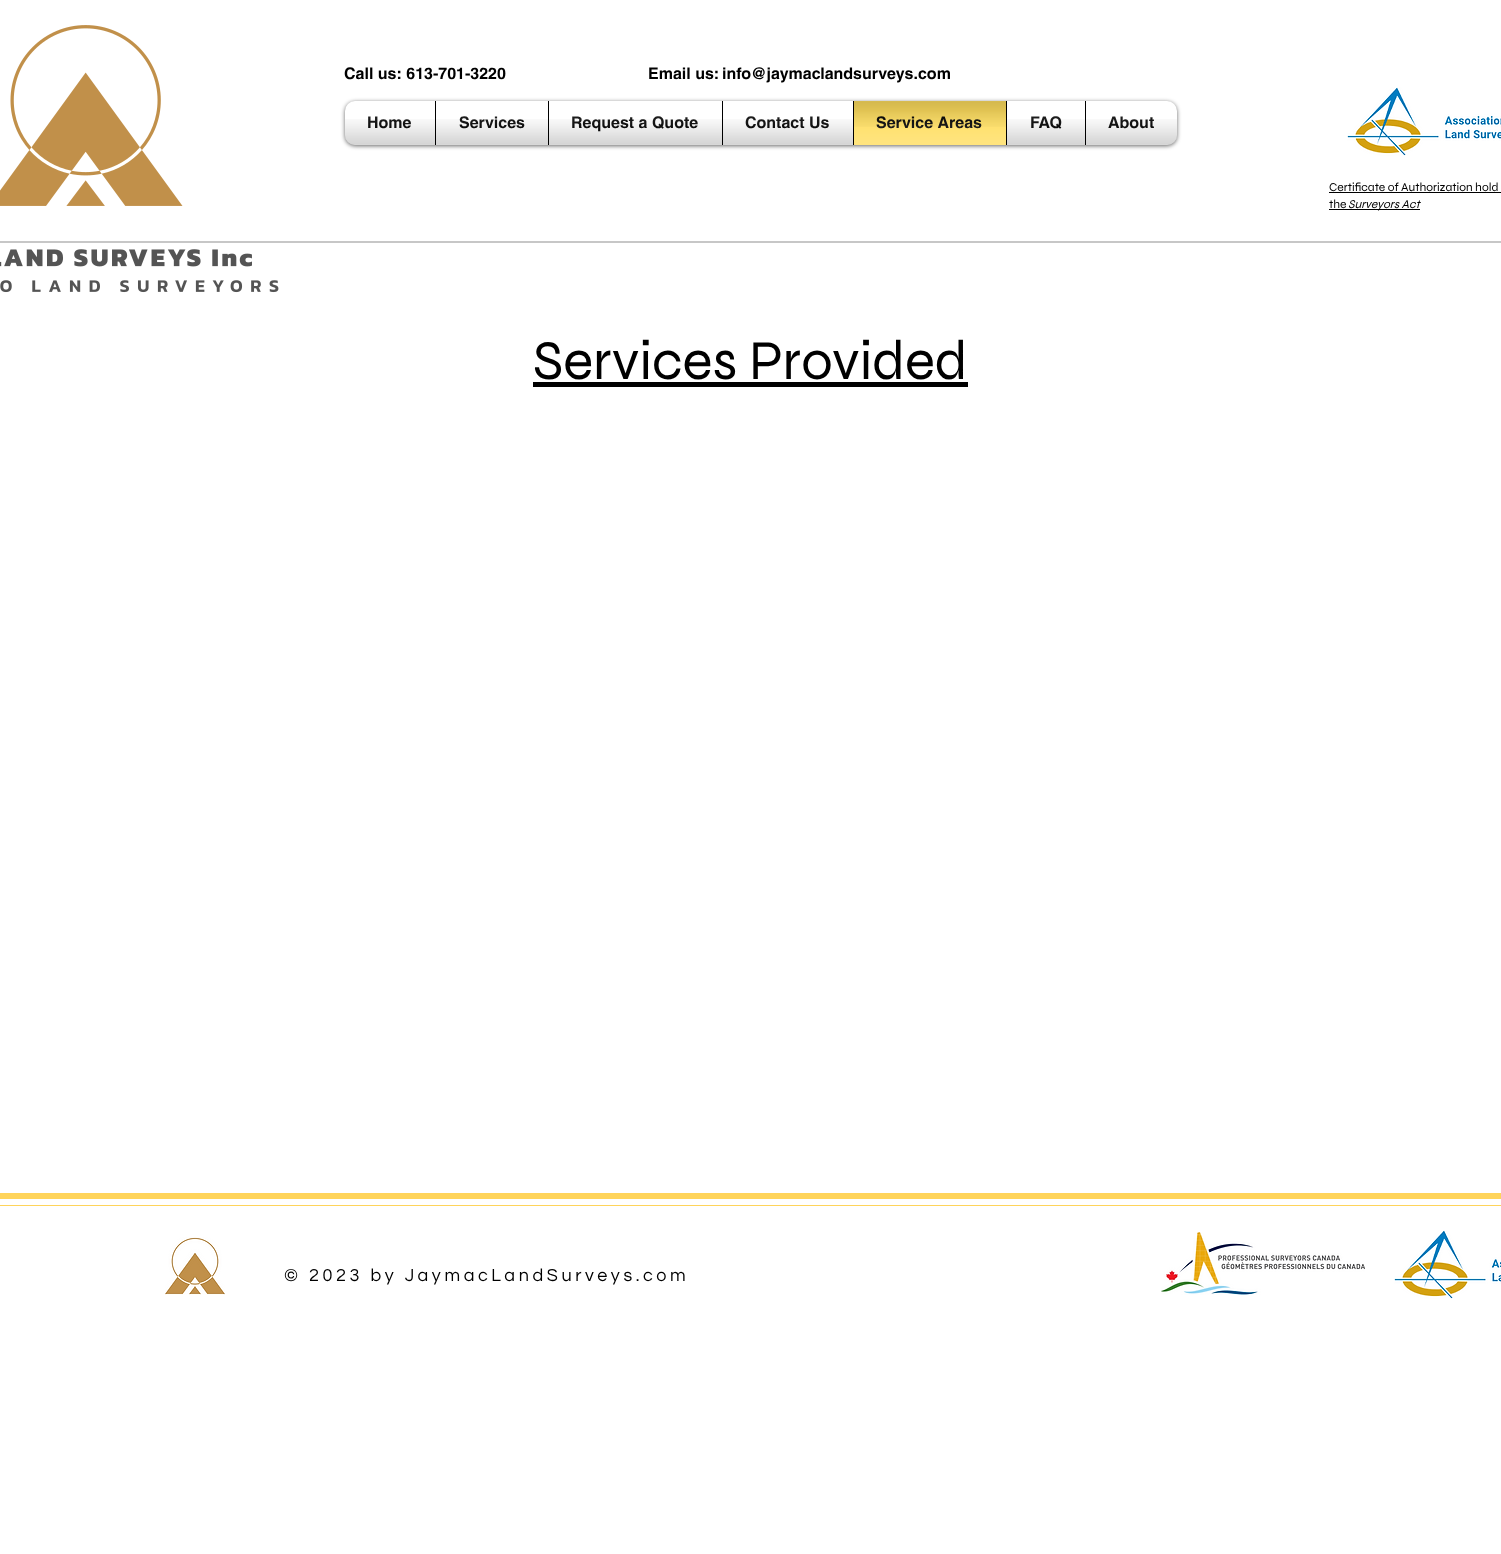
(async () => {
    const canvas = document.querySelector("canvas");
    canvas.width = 1501;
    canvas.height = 1554;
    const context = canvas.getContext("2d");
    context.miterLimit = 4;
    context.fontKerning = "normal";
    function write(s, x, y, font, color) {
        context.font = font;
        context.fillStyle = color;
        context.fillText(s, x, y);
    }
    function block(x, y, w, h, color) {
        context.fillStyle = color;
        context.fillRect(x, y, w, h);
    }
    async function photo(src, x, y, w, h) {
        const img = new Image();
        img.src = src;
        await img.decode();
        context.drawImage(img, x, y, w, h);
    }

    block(0, 0, 1501, 1554, "rgb(255, 255, 255)");
    block(0, 241, 1501, 2, "rgb(199, 199, 199)");
    await photo("media/1.png", 0, 25, 279, 268);
    write("Call us: 613-701-3220", 344, 79, "bold 16px helvetica", "rgb(0, 0, 0)");
    write("Email us:", 648, 79, "bold 16px helvetica", "rgb(0, 0, 0)");
    write("info@jaymaclandsurveys.com", 722, 79, "bold 16px helvetica", "rgb(0, 0, 0)");
    context.fillStyle = "rgba(0, 0, 0, 0.6)";
    context.filter = "blur(2px)";
    context.beginPath();
    context.roundRect(345, 102, 832, 44, 10);
    context.fill();
    context.filter = "none";
    await photo("media/2.png", 345, 135, 832, 10);
    context.fillStyle = "rgb(255, 255, 255)";
    context.beginPath();
    context.roundRect(345, 101, 90, 44, [10, 0, 0, 10]);
    context.fill();
    write("Home", 367, 128, "bold 16px helvetica", "rgb(0, 0, 0)");
    await photo("media/3.png", 368, 116, 44, 12);
    await photo("media/4.png", 345, 119, 90, 26);
    block(436, 101, 112, 44, "rgb(255, 255, 255)");
    block(435, 101, 1, 44, "rgb(0, 0, 0)");
    write("Services", 459, 128, "bold 16px helvetica", "rgb(0, 0, 0)");
    await photo("media/5.png", 459, 116, 65, 12);
    await photo("media/6.png", 436, 119, 112, 26);
    block(549, 101, 173, 44, "rgb(255, 255, 255)");
    block(548, 101, 1, 44, "rgb(0, 0, 0)");
    write("Request a Quote", 571, 128, "bold 16px helvetica", "rgb(0, 0, 0)");
    await photo("media/7.png", 572, 116, 126, 15);
    await photo("media/8.png", 549, 119, 173, 26);
    block(723, 101, 130, 44, "rgb(255, 255, 255)");
    block(722, 101, 1, 44, "rgb(0, 0, 0)");
    write("Contact Us", 745, 128, "bold 16px helvetica", "rgb(0, 0, 0)");
    await photo("media/9.png", 746, 116, 83, 12);
    await photo("media/10.png", 723, 119, 130, 26);
    block(854, 101, 152, 44, "rgb(255, 222, 95)");
    block(853, 101, 1, 44, "rgb(0, 0, 0)");
    write("Service Areas", 876, 128, "bold 16px helvetica", "rgb(0, 0, 0)");
    await photo("media/11.png", 854, 101, 152, 26);
    await photo("media/12.png", 854, 112, 152, 33);
    block(1007, 101, 78, 44, "rgb(255, 255, 255)");
    block(1006, 101, 1, 44, "rgb(0, 0, 0)");
    write("FAQ", 1030, 128, "bold 16px helvetica", "rgb(0, 0, 0)");
    await photo("media/13.png", 1030, 116, 31, 13);
    await photo("media/14.png", 1007, 119, 78, 26);
    context.fillStyle = "rgb(255, 255, 255)";
    context.beginPath();
    context.roundRect(1085, 101, 92, 44, [0, 10, 10, 0]);
    context.fill();
    block(1085, 101, 1, 44, "rgb(0, 0, 0)");
    write("About", 1108, 128, "bold 16px helvetica", "rgb(0, 0, 0)");
    await photo("media/15.png", 1108, 116, 46, 12);
    await photo("media/16.png", 1086, 119, 91, 26);
    await photo("media/17.png", 1347, 87, 154, 69);
    write("Certificate of Authorization hold", 1329, 191, "12px Syne", "rgb(0, 0, 0)");
    block(1329, 192, 172, 1, "rgb(0, 0, 0)");
    write("the", 1329, 208, "12px Syne", "rgb(0, 0, 0)");
    block(1329, 209, 91, 1, "rgb(0, 0, 0)");
    write("Surveyors Act", 1348, 208, "italic 12px Syne", "rgb(0, 0, 0)");
    write("Services Provided", 533, 379, "56px Syne", "rgb(0, 0, 0)");
    block(533, 382, 435, 5, "rgb(0, 0, 0)");
    block(0, 1193, 1501, 6, "rgb(255, 212, 90)");
    block(0, 1205, 1501, 1, "rgb(255, 212, 90)");
    await photo("media/18.png", 165, 1237, 60, 58);
    context.letterSpacing = "3.6px";
    write("© 2023 by JaymacLandSurveys.com", 284, 1281, "18px Questrial", "rgb(0, 0, 0)");
    await photo("media/19.png", 1161, 1232, 204, 63);
    await photo("media/20.png", 1394, 1230, 107, 69);
})();
